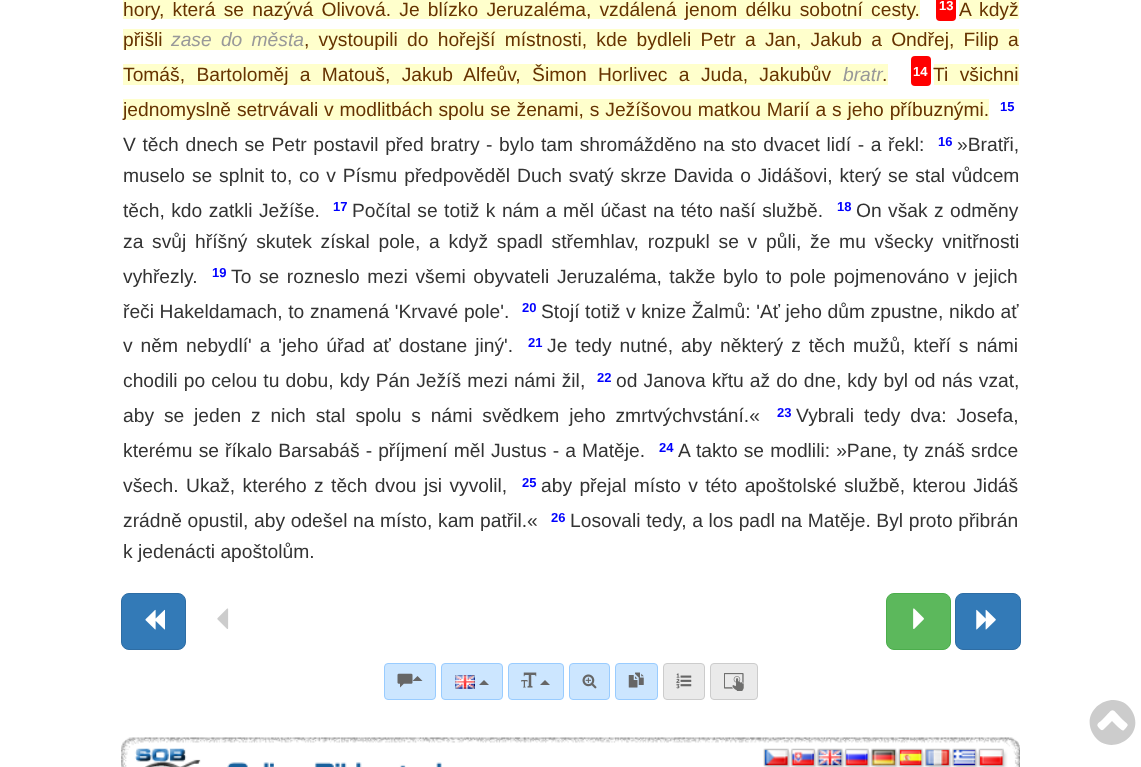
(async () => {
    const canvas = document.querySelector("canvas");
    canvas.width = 1141;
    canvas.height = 767;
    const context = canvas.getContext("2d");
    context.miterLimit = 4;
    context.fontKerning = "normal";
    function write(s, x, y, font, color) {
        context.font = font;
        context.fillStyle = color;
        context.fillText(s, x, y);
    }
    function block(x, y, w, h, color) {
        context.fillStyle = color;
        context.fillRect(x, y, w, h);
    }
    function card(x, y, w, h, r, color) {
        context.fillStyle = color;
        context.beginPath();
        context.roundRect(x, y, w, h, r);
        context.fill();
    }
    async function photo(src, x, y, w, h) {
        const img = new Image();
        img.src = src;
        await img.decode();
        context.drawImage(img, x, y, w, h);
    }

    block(0, 0, 1141, 767, "rgb(255, 255, 255)");
    block(123, 0, 797, 19, "rgb(255, 255, 204)");
    context.wordSpacing = "2.9px";
    write("hory, která se nazývá Olivová. Je blízko Jeruzaléma, vzdálená jenom délku sobotní cesty.", 123, 16, "19.25px Liberation Sans", "rgb(102, 51, 0)");
    card(936, -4, 20, 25, 4, "rgb(255, 0, 0)");
    context.wordSpacing = "0px";
    write("13", 939, 10, "bold 13px Liberation Sans", "rgb(255, 255, 255)");
    block(959, 0, 60, 19, "rgb(255, 255, 204)");
    context.wordSpacing = "2.9px";
    write("A když", 959, 16, "19.25px Liberation Sans", "rgb(102, 51, 0)");
    block(123, 29, 896, 21, "rgb(255, 255, 204)");
    context.wordSpacing = "0px";
    write("přišli", 123, 46, "19.25px Liberation Sans", "rgb(102, 51, 0)");
    context.wordSpacing = "3.9px";
    write("zase do města", 171, 46, "italic 19.25px Liberation Sans", "rgb(153, 153, 153)");
    write(", vystoupili do hořejší místnosti, kde bydleli Petr a Jan, Jakub a Ondřej, Filip a", 304, 46, "19.25px Liberation Sans", "rgb(102, 51, 0)");
    block(123, 64, 765, 21, "rgb(255, 255, 204)");
    context.wordSpacing = "6px";
    write("Tomáš, Bartoloměj a Matouš, Jakub Alfeův, Šimon Horlivec a Juda, Jakubův", 123, 81, "19.25px Liberation Sans", "rgb(102, 51, 0)");
    context.wordSpacing = "0px";
    write("bratr", 843, 81, "italic 19.25px Liberation Sans", "rgb(153, 153, 153)");
    write(".", 882, 81, "19.25px Liberation Sans", "rgb(102, 51, 0)");
    card(911, 56, 20, 30, 4, "rgb(255, 0, 0)");
    write("14", 913, 76, "bold 13px Liberation Sans", "rgb(255, 255, 255)");
    block(934, 64, 85, 21, "rgb(255, 255, 204)");
    context.wordSpacing = "6px";
    write("Ti všichni", 933, 81, "19.25px Liberation Sans", "rgb(102, 51, 0)");
    block(123, 99, 866, 21, "rgb(255, 255, 204)");
    context.wordSpacing = "0.5px";
    write("jednomyslně setrvávali v modlitbách spolu se ženami, s Ježíšovou matkou Marií a s jeho příbuznými.", 123, 116, "19.25px Liberation Sans", "rgb(102, 51, 0)");
    context.wordSpacing = "0px";
    write("15", 1000, 111, "bold 13px Liberation Sans", "rgb(0, 0, 255)");
    context.wordSpacing = "1.25px";
    write("V těch dnech se Petr postavil před bratry - bylo tam shromážděno na sto dvacet lidí - a řekl:", 123, 151, "19.25px Liberation Sans", "rgb(51, 51, 51)");
    context.wordSpacing = "0px";
    write("16", 938, 146, "bold 13px Liberation Sans", "rgb(0, 0, 255)");
    write("»Bratři,", 957, 151, "19.25px Liberation Sans", "rgb(51, 51, 51)");
    context.wordSpacing = "1.5px";
    write("muselo se splnit to, co v Písmu předpověděl Duch svatý skrze Davida o Jidášovi, který se stal vůdcem", 123, 182, "19.25px Liberation Sans", "rgb(51, 51, 51)");
    context.wordSpacing = "1.1px";
    write("těch, kdo zatkli Ježíše.", 123, 217, "19.25px Liberation Sans", "rgb(51, 51, 51)");
    context.wordSpacing = "0px";
    write("18", 837, 211, "bold 13px Liberation Sans", "rgb(0, 0, 255)");
    context.wordSpacing = "1px";
    write("On však z odměny", 856, 217, "19.25px Liberation Sans", "rgb(51, 51, 51)");
    context.wordSpacing = "3.4px";
    write("za svůj hříšný skutek získal pole, a když spadl střemhlav, rozpukl se v půli, že mu všecky vnitřnosti", 123, 248, "19.25px Liberation Sans", "rgb(51, 51, 51)");
    context.wordSpacing = "0px";
    write("vyhřezly.", 123, 283, "19.25px Liberation Sans", "rgb(51, 51, 51)");
    write("17", 333, 211, "bold 13px Liberation Sans", "rgb(0, 0, 255)");
    context.wordSpacing = "1.1px";
    write("Počítal se totiž k nám a měl účast na této naší službě.", 352, 217, "19.25px Liberation Sans", "rgb(51, 51, 51)");
    context.wordSpacing = "0px";
    write("19", 212, 277, "bold 13px Liberation Sans", "rgb(0, 0, 255)");
    context.wordSpacing = "2.25px";
    write("To se rozneslo mezi všemi obyvateli Jeruzaléma, takže bylo to pole pojmenováno v jejich", 231, 283, "19.25px Liberation Sans", "rgb(51, 51, 51)");
    context.wordSpacing = "0.25px";
    write("řeči Hakeldamach, to znamená 'Krvavé pole'.", 123, 318, "19.25px Liberation Sans", "rgb(51, 51, 51)");
    context.wordSpacing = "0px";
    write("20", 522, 312, "bold 13px Liberation Sans", "rgb(0, 0, 255)");
    context.wordSpacing = "0.25px";
    write("Stojí totiž v knize Žalmů: 'Ať jeho dům zpustne, nikdo ať", 541, 318, "19.25px Liberation Sans", "rgb(51, 51, 51)");
    context.wordSpacing = "2.6px";
    write("v něm nebydlí' a 'jeho úřad ať dostane jiný'.", 123, 352, "19.25px Liberation Sans", "rgb(51, 51, 51)");
    context.wordSpacing = "0px";
    write("21", 528, 347, "bold 13px Liberation Sans", "rgb(0, 0, 255)");
    context.wordSpacing = "2.6px";
    write("Je tedy nutné, aby některý z těch mužů, kteří s námi", 547, 352, "19.25px Liberation Sans", "rgb(51, 51, 51)");
    context.wordSpacing = "0.75px";
    write("chodili po celou tu dobu, kdy Pán Ježíš mezi námi žil,", 123, 387, "19.25px Liberation Sans", "rgb(51, 51, 51)");
    context.wordSpacing = "0px";
    write("22", 597, 382, "bold 13px Liberation Sans", "rgb(0, 0, 255)");
    context.wordSpacing = "0.75px";
    write("od Janova křtu až do dne, kdy byl od nás vzat,", 616, 387, "19.25px Liberation Sans", "rgb(51, 51, 51)");
    context.wordSpacing = "4.5px";
    write("aby se jeden z nich stal spolu s námi svědkem jeho zmrtvýchvstání.«", 123, 422, "19.25px Liberation Sans", "rgb(51, 51, 51)");
    context.wordSpacing = "0px";
    write("23", 777, 417, "bold 13px Liberation Sans", "rgb(0, 0, 255)");
    context.wordSpacing = "4.5px";
    write("Vybrali tedy dva: Josefa,", 796, 422, "19.25px Liberation Sans", "rgb(51, 51, 51)");
    context.wordSpacing = "0.75px";
    write("kterému se říkalo Barsabáš - příjmení měl Justus - a Matěje.", 123, 457, "19.25px Liberation Sans", "rgb(51, 51, 51)");
    context.wordSpacing = "0px";
    write("24", 659, 452, "bold 13px Liberation Sans", "rgb(0, 0, 255)");
    context.wordSpacing = "0.75px";
    write("A takto se modlili: »Pane, ty znáš srdce", 678, 457, "19.25px Liberation Sans", "rgb(51, 51, 51)");
    context.wordSpacing = "2px";
    write("všech. Ukaž, kterého z těch dvou jsi vyvolil,", 123, 492, "19.25px Liberation Sans", "rgb(51, 51, 51)");
    context.wordSpacing = "0px";
    write("25", 522, 487, "bold 13px Liberation Sans", "rgb(0, 0, 255)");
    context.wordSpacing = "2px";
    write("aby přejal místo v této apoštolské službě, kterou Jidáš", 541, 492, "19.25px Liberation Sans", "rgb(51, 51, 51)");
    context.wordSpacing = "0.25px";
    write("zrádně opustil, aby odešel na místo, kam patřil.«", 123, 527, "19.25px Liberation Sans", "rgb(51, 51, 51)");
    context.wordSpacing = "0px";
    write("26", 551, 522, "bold 13px Liberation Sans", "rgb(0, 0, 255)");
    context.wordSpacing = "0.25px";
    write("Losovali tedy, a los padl na Matěje. Byl proto přibrán", 570, 527, "19.25px Liberation Sans", "rgb(51, 51, 51)");
    context.wordSpacing = "0px";
    write("k jedenácti apoštolům.", 123, 558, "19.25px Liberation Sans", "rgb(51, 51, 51)");
    context.fillStyle = "rgb(51, 122, 183)";
    context.beginPath();
    context.roundRect(121.5, 593.5, 64, 56, 7.5);
    context.fill();
    context.strokeStyle = "rgb(46, 109, 164)";
    context.stroke();
    await photo("media/1.png", 145, 609, 20, 21);
    await photo("media/2.png", 217, 608, 12, 21);
    context.fillStyle = "rgb(92, 184, 92)";
    context.beginPath();
    context.roundRect(886.5, 593.5, 64, 56, 7.5);
    context.fill();
    context.strokeStyle = "rgb(76, 174, 76)";
    context.stroke();
    await photo("media/3.png", 913, 608, 11, 21);
    context.fillStyle = "rgb(51, 122, 183)";
    context.beginPath();
    context.roundRect(955.5, 593.5, 65, 56, 7.5);
    context.fill();
    context.strokeStyle = "rgb(46, 109, 164)";
    context.stroke();
    await photo("media/4.png", 976, 609, 20, 21);
    context.fillStyle = "rgb(204, 230, 255)";
    context.beginPath();
    context.roundRect(384.5, 663.5, 51, 36, 3.5);
    context.fill();
    context.strokeStyle = "rgb(153, 204, 255)";
    context.stroke();
    await photo("media/5.png", 397, 673, 16, 15);
    context.fillStyle = "rgb(102, 102, 102)";
    context.beginPath();
    context.moveTo(422.5, 681);
    context.lineTo(412.5, 681);
    context.lineTo(417.5, 676);
    context.closePath();
    context.fill();
    context.fillStyle = "rgb(204, 230, 255)";
    context.beginPath();
    context.roundRect(441.5, 663.5, 61, 36, 3.5);
    context.fill();
    context.stroke();
    await photo("media/6.png", 455, 675, 20, 14);
    context.fillStyle = "rgb(102, 102, 102)";
    context.beginPath();
    context.moveTo(489, 685);
    context.lineTo(479, 685);
    context.lineTo(484, 680);
    context.closePath();
    context.fill();
    context.fillStyle = "rgb(204, 230, 255)";
    context.beginPath();
    context.roundRect(508.5, 663.5, 55, 36, 3.5);
    context.fill();
    context.stroke();
    await photo("media/7.png", 521, 672, 16, 16);
    context.fillStyle = "rgb(102, 102, 102)";
    context.beginPath();
    context.moveTo(550, 685);
    context.lineTo(540, 685);
    context.lineTo(545, 680);
    context.closePath();
    context.fill();
    context.fillStyle = "rgb(204, 230, 255)";
    context.beginPath();
    context.roundRect(569.5, 663.5, 40, 36, 3.5);
    context.fill();
    context.stroke();
    await photo("media/8.png", 582, 674, 15, 15);
    context.beginPath();
    context.roundRect(615.5, 663.5, 42, 36, 3.5);
    context.fill();
    context.stroke();
    await photo("media/9.png", 628, 672, 16, 16);
    context.fillStyle = "rgb(234, 234, 234)";
    context.beginPath();
    context.roundRect(663.5, 663.5, 41, 36, 3.5);
    context.fill();
    context.strokeStyle = "rgb(204, 204, 204)";
    context.stroke();
    await photo("media/10.png", 676, 673, 16, 16);
    context.beginPath();
    context.roundRect(710.5, 663.5, 47, 36, 3.5);
    context.fill();
    context.stroke();
    await photo("media/11.png", 724, 673, 20, 18);
    context.fillStyle = "rgb(204, 204, 204)";
    context.beginPath();
    context.moveTo(1124, 730);
    context.bezierCurveTo(1130, 724, 1128, 725, 1123, 720);
    context.bezierCurveTo(1110, 707, 1115, 707, 1102, 720);
    context.bezierCurveTo(1099, 723, 1095, 724, 1099, 728);
    context.bezierCurveTo(1102, 731, 1102, 731, 1105, 728);
    context.lineTo(1112, 721);
    context.lineTo(1118, 727);
    context.bezierCurveTo(1120, 728, 1122, 732, 1124, 730);
    context.closePath();
    context.moveTo(1132, 711);
    context.bezierCurveTo(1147, 737, 1108, 759, 1093, 734);
    context.bezierCurveTo(1078, 708, 1117, 686, 1132, 711);
    context.closePath();
    context.fill();
    await photo("media/12.png", 121, 737, 899, 30);
})();
